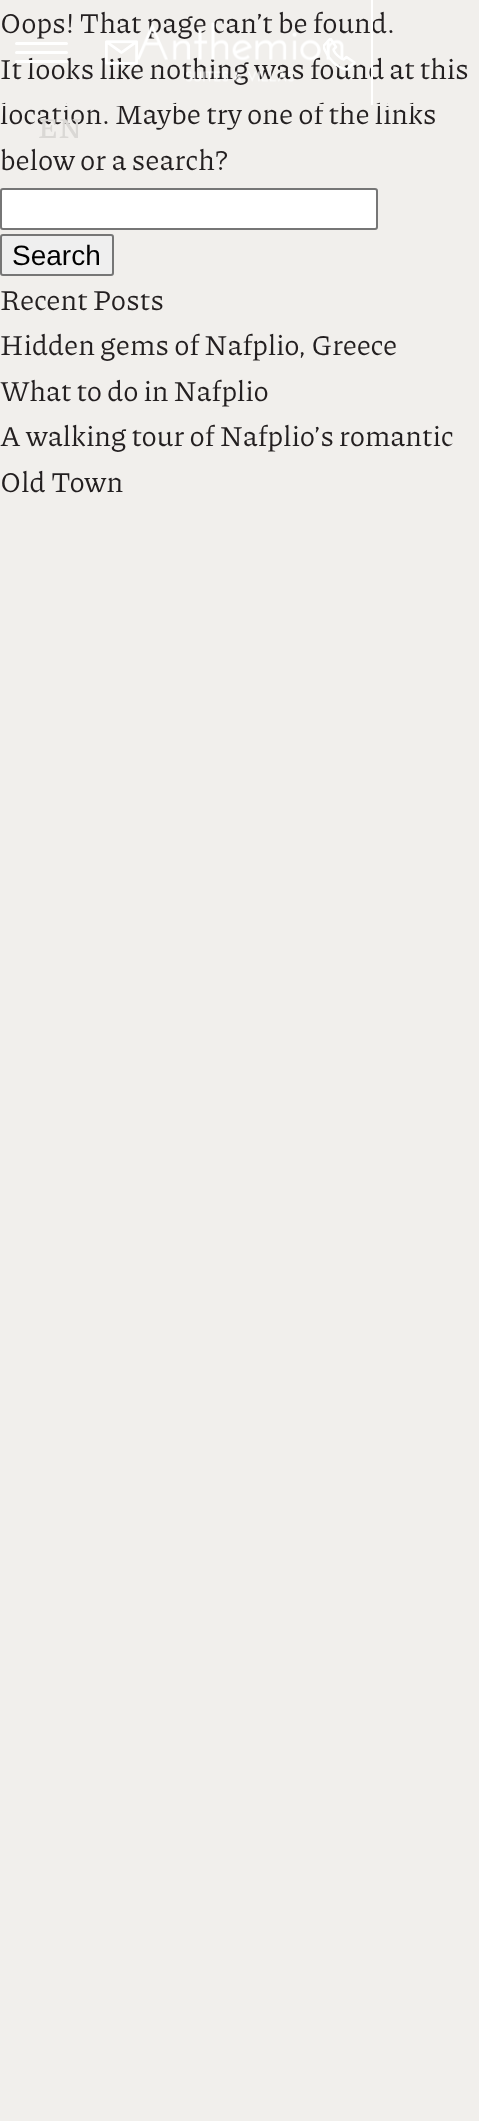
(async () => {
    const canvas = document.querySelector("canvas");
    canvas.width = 479;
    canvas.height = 2121;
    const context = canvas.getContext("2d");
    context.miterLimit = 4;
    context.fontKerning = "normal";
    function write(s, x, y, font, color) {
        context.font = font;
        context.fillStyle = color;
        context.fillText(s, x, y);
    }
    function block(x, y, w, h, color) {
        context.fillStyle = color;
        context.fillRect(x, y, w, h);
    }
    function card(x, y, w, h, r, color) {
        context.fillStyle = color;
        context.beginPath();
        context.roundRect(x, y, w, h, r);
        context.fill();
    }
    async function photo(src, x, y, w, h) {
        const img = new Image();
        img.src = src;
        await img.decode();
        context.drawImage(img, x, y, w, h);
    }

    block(0, 0, 479, 2121, "rgb(241, 239, 236)");
    write("Oops! That page can’t be found.", 0, 33, "28.5px Piazzolla", "rgb(35, 31, 32)");
    write("It looks like nothing was found at this", 0, 79, "28.5px Piazzolla", "rgb(35, 31, 32)");
    write("location. Maybe try one of the links", 0, 124, "28.5px Piazzolla", "rgb(35, 31, 32)");
    write("below or a search?", 0, 170, "28.5px Piazzolla", "rgb(35, 31, 32)");
    context.fillStyle = "rgb(255, 255, 255)";
    context.beginPath();
    context.roundRect(1, 189, 376, 40, 2);
    context.fill();
    context.strokeStyle = "rgb(118, 118, 118)";
    context.lineWidth = 2;
    context.stroke();
    context.fillStyle = "rgb(239, 239, 239)";
    context.beginPath();
    context.roundRect(1, 235, 112, 40, 2);
    context.fill();
    context.stroke();
    write("Search", 12, 265, "28px Liberation Sans", "rgb(0, 0, 0)");
    write("Recent Posts", 0, 310, "28.5px Piazzolla", "rgb(35, 31, 32)");
    write("Hidden gems of Nafplio, Greece", 0, 355, "28.5px Piazzolla", "rgb(35, 31, 32)");
    write("What to do in Nafplio", 0, 401, "28.5px Piazzolla", "rgb(35, 31, 32)");
    write("A walking tour of Nafplio’s romantic", 0, 446, "28.5px Piazzolla", "rgb(35, 31, 32)");
    write("Old Town", 0, 492, "28.5px Piazzolla", "rgb(35, 31, 32)");
    block(0, 104, 414, 2, "rgb(241, 239, 236)");
    card(15, 42, 53, 3, 1.5, "rgb(255, 255, 255)");
    card(15, 51, 53, 3, 1.5, "rgb(255, 255, 255)");
    card(15, 60, 53, 3, 1.5, "rgb(255, 255, 255)");
    await photo("media/1.png", 138, 22, 206, 60);
    await photo("media/2.png", 105, 40, 33, 25);
    context.save();
    context.beginPath();
    context.rect(323, 38, 33, 33);
    context.clip();
    context.beginPath();
    context.moveTo(330.5, 38.5);
    context.lineTo(323.5, 46);
    context.lineTo(324.5, 49.5);
    context.bezierCurveTo(328.5, 59, 336.5, 67.5, 347, 69.5);
    context.lineTo(354.5, 62.5);
    context.lineTo(346.5, 57);
    context.lineTo(343.5, 59.5);
    context.bezierCurveTo(339.5, 57.5, 336, 55, 334, 51);
    context.lineTo(333.5, 49.5);
    context.lineTo(336, 47);
    context.closePath();
    context.strokeStyle = "rgb(255, 255, 255)";
    context.lineWidth = 2.5;
    context.lineJoin = "round";
    context.stroke();
    context.restore();
    block(371, 0, 2, 105, "rgb(255, 255, 255)");
    write("EN", 38, 138, "600 28.5px Piazzolla", "rgb(218, 216, 213)");
})();
